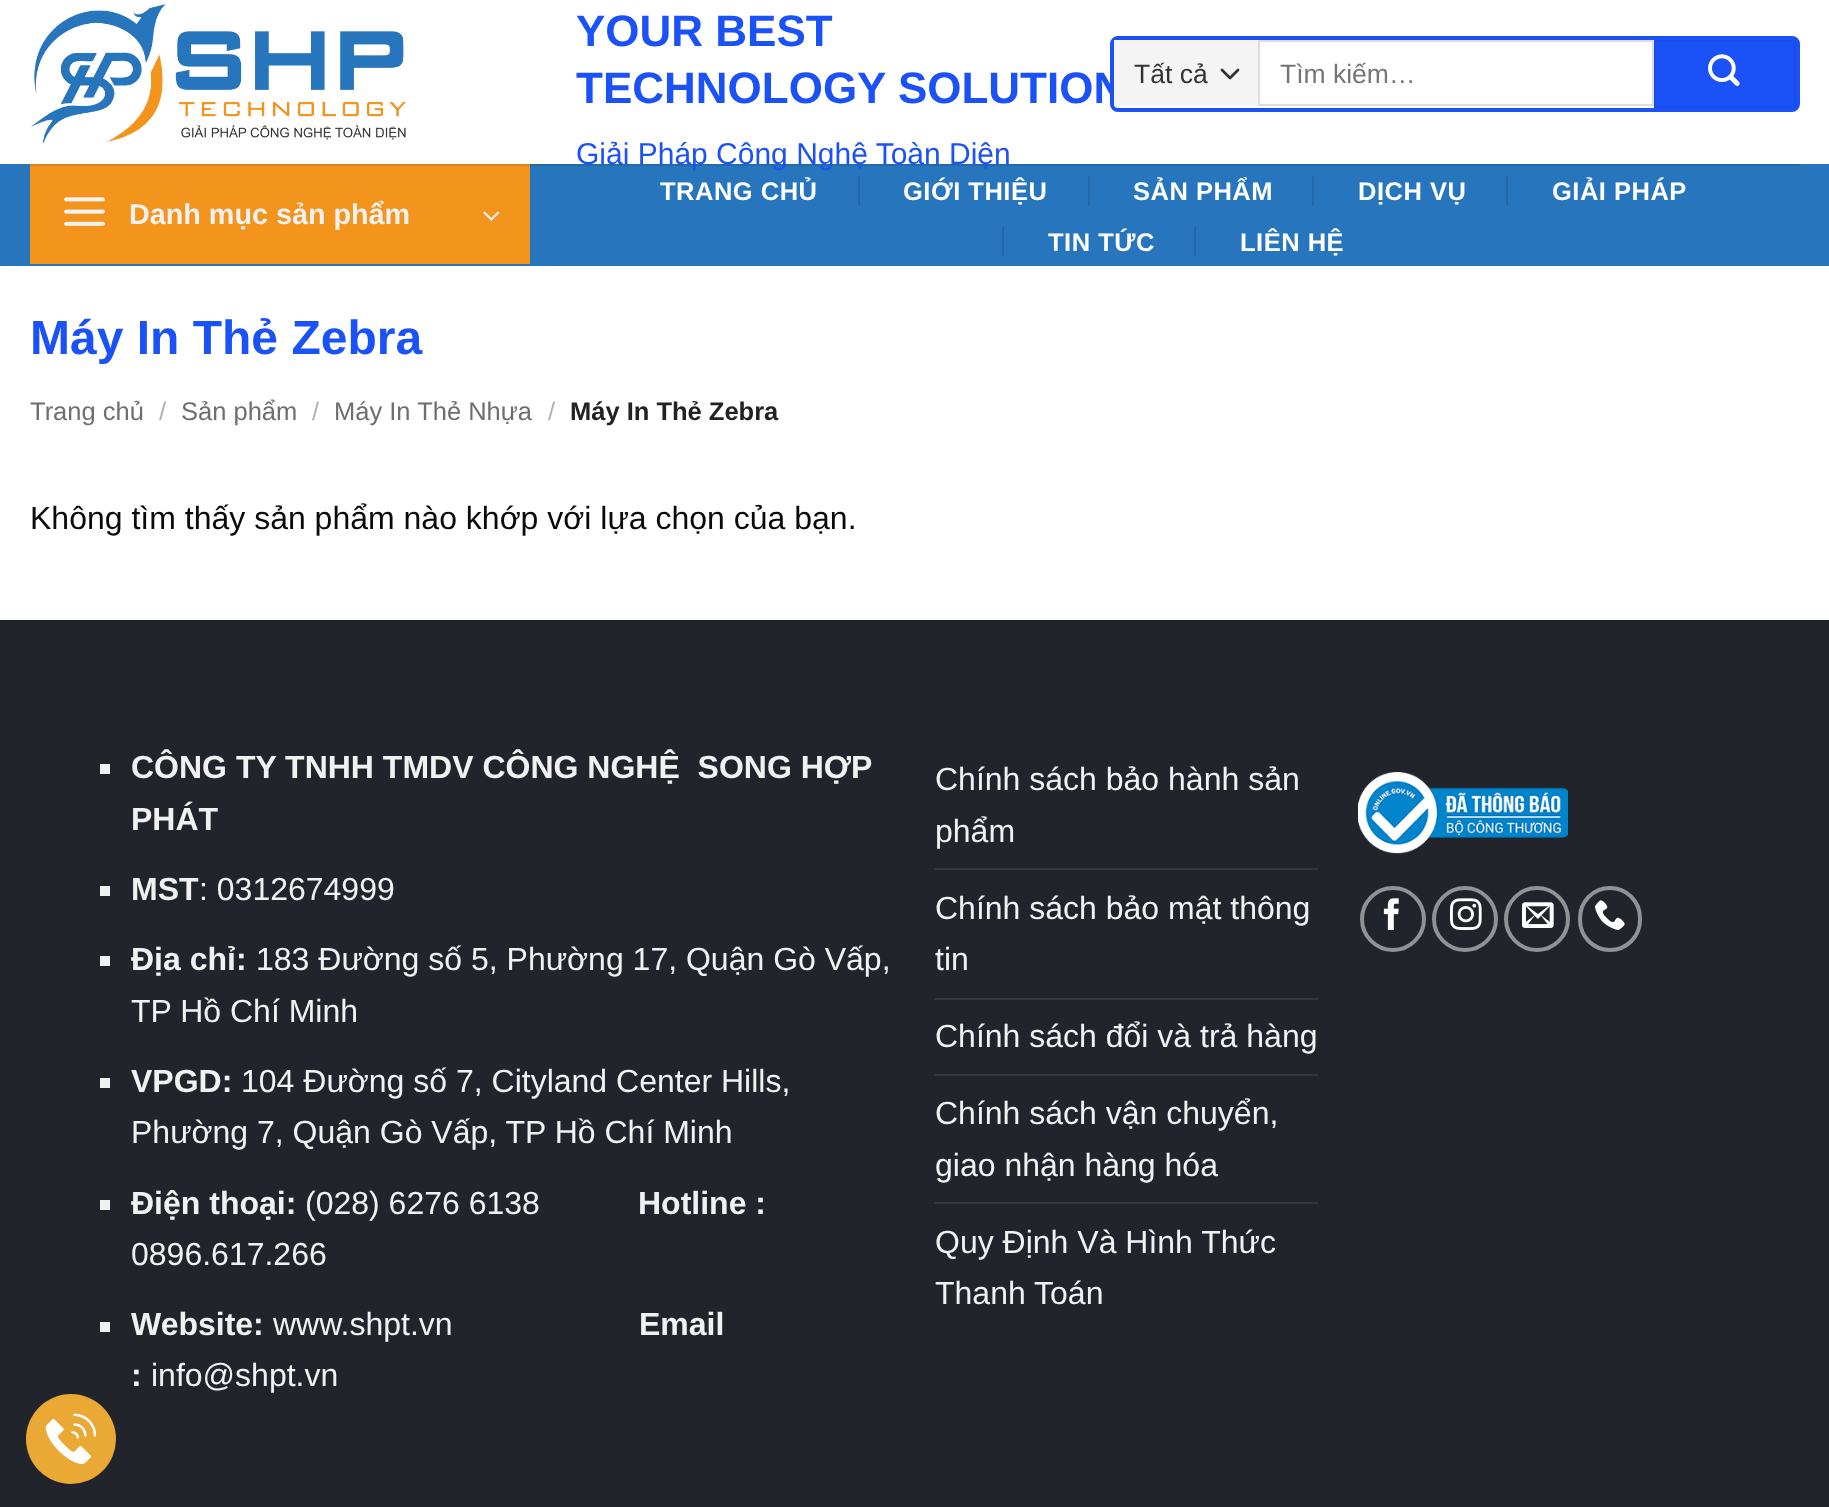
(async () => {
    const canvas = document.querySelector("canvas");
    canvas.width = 1829;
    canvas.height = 1507;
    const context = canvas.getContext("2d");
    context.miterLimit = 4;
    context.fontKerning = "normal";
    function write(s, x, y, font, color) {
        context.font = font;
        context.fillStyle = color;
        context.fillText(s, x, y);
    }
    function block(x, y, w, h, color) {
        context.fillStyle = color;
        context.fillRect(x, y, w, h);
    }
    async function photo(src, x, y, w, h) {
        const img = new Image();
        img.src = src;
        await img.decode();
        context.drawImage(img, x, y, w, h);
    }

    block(0, 0, 1829, 1507, "rgb(255, 255, 255)");
    await photo("media/1.png", 30, 4, 376, 140);
    write("YOUR BEST", 576, 46, "bold 44px Liberation Sans", "rgb(27, 82, 247)");
    write("TECHNOLOGY SOLUTION", 576, 103, "bold 44px Liberation Sans", "rgb(27, 82, 247)");
    block(0, 164, 1829, 102, "rgb(39, 117, 189)");
    write("Giải Pháp Công Nghệ Toàn Diện", 576, 164, "30px Liberation Sans", "rgb(27, 82, 247)");
    context.beginPath();
    context.roundRect(1112, 38, 686, 72, 6);
    context.strokeStyle = "rgb(27, 82, 247)";
    context.lineWidth = 4;
    context.stroke();
    block(1114, 40, 144, 66, "rgb(244, 244, 244)");
    context.beginPath();
    context.moveTo(1222, 70);
    context.lineTo(1230, 78);
    context.lineTo(1238, 70);
    context.strokeStyle = "rgb(51, 51, 51)";
    context.lineWidth = 2.7;
    context.lineCap = "round";
    context.lineJoin = "round";
    context.stroke();
    write("Tất cả", 1134, 83, "26.5px Liberation Sans", "rgb(51, 51, 51)");
    context.strokeStyle = "rgb(221, 221, 221)";
    context.lineWidth = 2;
    context.lineJoin = "miter";
    context.strokeRect(1259, 41, 394, 64);
    write("Tìm kiếm…", 1280, 83, "26.5px Liberation Sans", "rgb(117, 117, 117)");
    context.fillStyle = "rgb(27, 82, 247)";
    context.beginPath();
    context.rect(1655, 41, 140, 66);
    context.fill();
    context.strokeStyle = "rgb(26, 78, 235)";
    context.stroke();
    await photo("media/2.png", 1708, 54, 32, 32);
    block(30, 164, 500, 100, "rgb(243, 148, 28)");
    block(30, 164, 1770, 2, "rgba(10, 10, 10, 0.1)");
    await photo("media/3.png", 64, 197, 41, 29);
    write("Danh mục sản phẩm", 129, 224, "bold 28.75px Liberation Sans", "rgb(241, 241, 241)");
    await photo("media/4.png", 483, 211, 17, 10);
    context.letterSpacing = "0.5px";
    write("TRANG CHỦ", 660, 200, "bold 25.5px Liberation Sans", "rgb(255, 255, 255)");
    block(858, 176, 2, 30, "rgb(35, 105, 170)");
    write("GIỚI THIỆU", 903, 200, "bold 25.5px Liberation Sans", "rgb(255, 255, 255)");
    block(1088, 176, 2, 30, "rgb(35, 105, 170)");
    write("SẢN PHẨM", 1133, 200, "bold 25.5px Liberation Sans", "rgb(255, 255, 255)");
    block(1312, 176, 2, 30, "rgb(35, 105, 170)");
    write("DỊCH VỤ", 1358, 200, "bold 25.5px Liberation Sans", "rgb(255, 255, 255)");
    block(1506, 176, 2, 30, "rgb(35, 105, 170)");
    write("GIẢI PHÁP", 1552, 200, "bold 25.5px Liberation Sans", "rgb(255, 255, 255)");
    block(1002, 226, 2, 30, "rgb(35, 105, 170)");
    write("TIN TỨC", 1048, 251, "bold 25.5px Liberation Sans", "rgb(255, 255, 255)");
    block(1194, 226, 2, 30, "rgb(35, 105, 170)");
    write("LIÊN HỆ", 1240, 251, "bold 25.5px Liberation Sans", "rgb(255, 255, 255)");
    context.letterSpacing = "0px";
    write("Máy In Thẻ Zebra", 30, 354, "bold 48px Liberation Sans", "rgb(27, 82, 247)");
    write("Trang chủ", 30, 420, "25.5px Liberation Sans", "rgb(110, 110, 110)");
    write("/", 159, 420, "25.5px Liberation Sans", "rgb(178, 178, 178)");
    write("Sản phẩm", 181, 420, "25.5px Liberation Sans", "rgb(110, 110, 110)");
    write("/", 312, 420, "25.5px Liberation Sans", "rgb(178, 178, 178)");
    write("Máy In Thẻ Nhựa", 334, 420, "25.5px Liberation Sans", "rgb(110, 110, 110)");
    write("/", 548, 420, "25.5px Liberation Sans", "rgb(178, 178, 178)");
    write("Máy In Thẻ Zebra", 570, 420, "bold 25.5px Liberation Sans", "rgb(34, 34, 34)");
    write("Không tìm thấy sản phẩm nào khớp với lựa chọn của bạn.", 30, 529, "32px Liberation Sans", "rgb(10, 10, 10)");
    block(0, 622, 1829, 885, "rgb(33, 37, 43)");
    block(0, 620, 1829, 2, "rgb(31, 35, 41)");
    block(100, 764, 10, 10, "rgb(241, 241, 241)");
    write("CÔNG TY TNHH TMDV CÔNG NGHỆ  SONG HỢP", 131, 778, "bold 32px Liberation Sans", "rgb(241, 241, 241)");
    write("PHÁT", 131, 830, "bold 32px Liberation Sans", "rgb(241, 241, 241)");
    block(100, 886, 10, 10, "rgb(241, 241, 241)");
    write("MST", 131, 900, "bold 32px Liberation Sans", "rgb(241, 241, 241)");
    write(": 0312674999", 199, 900, "32px Liberation Sans", "rgb(241, 241, 241)");
    block(100, 956, 10, 10, "rgb(241, 241, 241)");
    write("Địa chỉ:", 131, 970, "bold 32px Liberation Sans", "rgb(241, 241, 241)");
    write("183 Đường số 5, Phường 17, Quận Gò Vấp,", 256, 970, "32px Liberation Sans", "rgb(241, 241, 241)");
    write("TP Hồ Chí Minh", 131, 1022, "32px Liberation Sans", "rgb(241, 241, 241)");
    block(100, 1078, 10, 10, "rgb(241, 241, 241)");
    write("VPGD:", 131, 1092, "bold 32px Liberation Sans", "rgb(241, 241, 241)");
    write("104 Đường số 7, Cityland Center Hills,", 241, 1092, "32px Liberation Sans", "rgb(241, 241, 241)");
    write("Phường 7, Quận Gò Vấp, TP Hồ Chí Minh", 131, 1143, "32px Liberation Sans", "rgb(241, 241, 241)");
    block(100, 1200, 10, 10, "rgb(241, 241, 241)");
    write("Điện thoại:", 131, 1214, "bold 32px Liberation Sans", "rgb(241, 241, 241)");
    write("(028) 6276 6138", 305, 1214, "32px Liberation Sans", "rgb(241, 241, 241)");
    write("Hotline :", 638, 1214, "bold 32px Liberation Sans", "rgb(241, 241, 241)");
    write("0896.617.266", 131, 1265, "32px Liberation Sans", "rgb(241, 241, 241)");
    block(100, 1322, 10, 10, "rgb(241, 241, 241)");
    write("Website:", 131, 1335, "bold 32px Liberation Sans", "rgb(241, 241, 241)");
    write("www.shpt.vn", 273, 1335, "32px Liberation Sans", "rgb(241, 241, 241)");
    write("Email", 639, 1335, "bold 32px Liberation Sans", "rgb(241, 241, 241)");
    write(":", 131, 1386, "bold 32px Liberation Sans", "rgb(241, 241, 241)");
    write("info@shpt.vn", 151, 1386, "32px Liberation Sans", "rgb(241, 241, 241)");
    write("Chính sách bảo hành sản", 935, 790, "32px Liberation Sans", "rgb(241, 241, 241)");
    write("phẩm", 935, 842, "32px Liberation Sans", "rgb(241, 241, 241)");
    block(934, 868, 384, 2, "rgb(51, 54, 60)");
    write("Chính sách bảo mật thông", 935, 919, "32px Liberation Sans", "rgb(241, 241, 241)");
    write("tin", 935, 970, "32px Liberation Sans", "rgb(241, 241, 241)");
    block(934, 998, 384, 2, "rgb(51, 54, 60)");
    write("Chính sách đổi và trả hàng", 935, 1047, "32px Liberation Sans", "rgb(241, 241, 241)");
    block(934, 1074, 384, 2, "rgb(51, 54, 60)");
    write("Chính sách vận chuyển,", 935, 1124, "32px Liberation Sans", "rgb(241, 241, 241)");
    write("giao nhận hàng hóa", 935, 1176, "32px Liberation Sans", "rgb(241, 241, 241)");
    block(934, 1202, 384, 2, "rgb(51, 54, 60)");
    write("Quy Định Và Hình Thức", 935, 1253, "32px Liberation Sans", "rgb(241, 241, 241)");
    write("Thanh Toán", 935, 1304, "32px Liberation Sans", "rgb(241, 241, 241)");
    await photo("media/5.png", 1358, 772, 210, 82);
    context.beginPath();
    context.arc(1393, 919, 31, 0, Math.PI * 2);
    context.strokeStyle = "rgb(144, 146, 149)";
    context.lineWidth = 4;
    context.stroke();
    await photo("media/6.png", 1383, 898, 16, 32);
    context.beginPath();
    context.arc(1465, 919, 31, 0, Math.PI * 2);
    context.stroke();
    await photo("media/7.png", 1450, 898, 32, 32);
    context.beginPath();
    context.arc(1537, 919, 31, 0, Math.PI * 2);
    context.stroke();
    await photo("media/8.png", 1522, 902, 32, 26);
    context.beginPath();
    context.roundRect(1580, 888, 60, 62, 30);
    context.stroke();
    await photo("media/9.png", 1595, 900, 30, 30);
    context.fillStyle = "rgb(234, 168, 53)";
    context.beginPath();
    context.arc(71, 1439, 45, 0, Math.PI * 2);
    context.fill();
    await photo("media/10.png", 45, 1413, 52, 52);
})();
